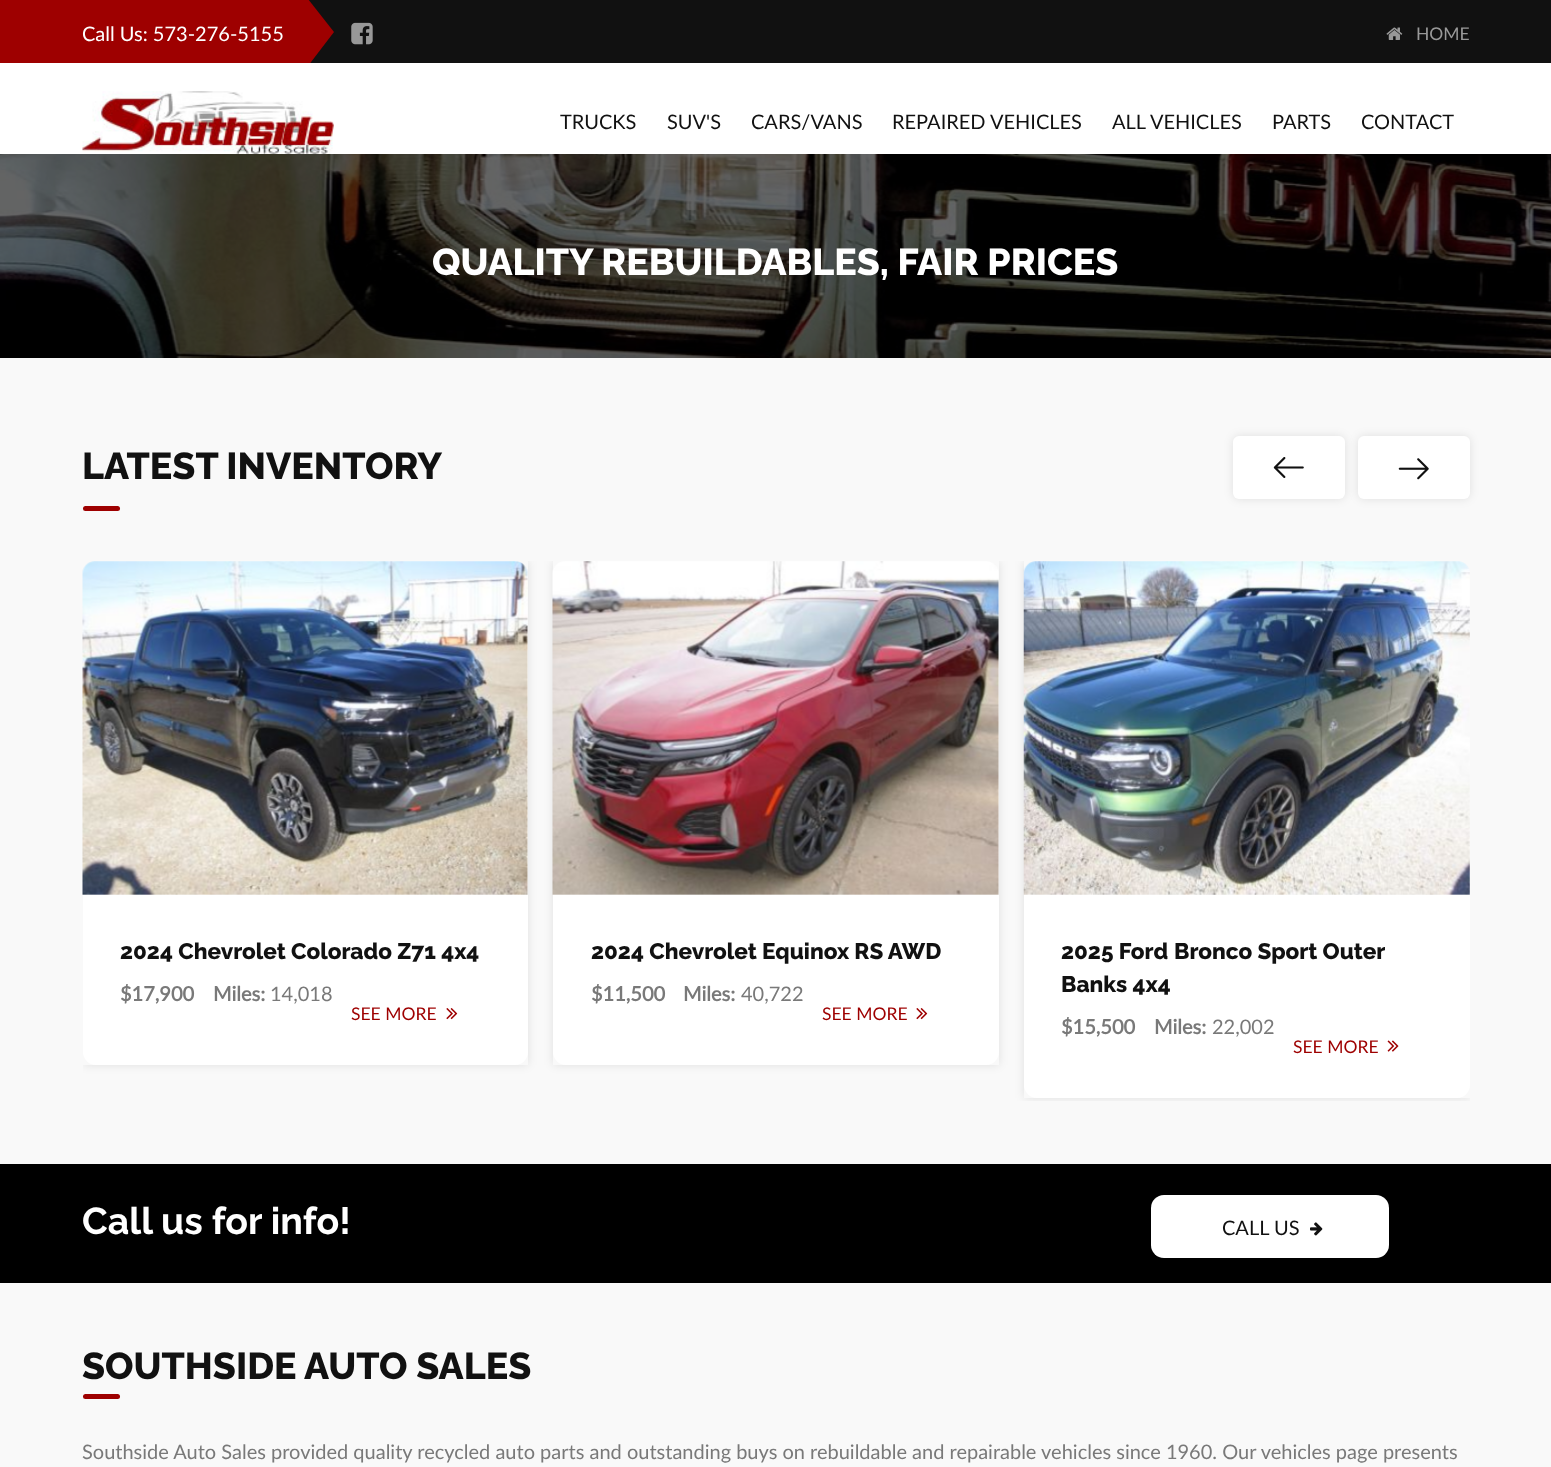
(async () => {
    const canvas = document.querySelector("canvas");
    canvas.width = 1551;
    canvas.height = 1467;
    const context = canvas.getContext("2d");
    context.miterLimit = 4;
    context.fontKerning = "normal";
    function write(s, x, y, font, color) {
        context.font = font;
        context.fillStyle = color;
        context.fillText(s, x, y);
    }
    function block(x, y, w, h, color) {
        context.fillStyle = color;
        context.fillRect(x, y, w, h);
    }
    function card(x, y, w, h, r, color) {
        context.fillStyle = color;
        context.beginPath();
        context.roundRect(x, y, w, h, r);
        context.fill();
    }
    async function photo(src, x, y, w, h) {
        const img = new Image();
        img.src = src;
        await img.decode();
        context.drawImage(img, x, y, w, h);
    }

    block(0, 0, 1551, 1467, "rgb(249, 249, 249)");
    block(308, 0, 1243, 63, "rgb(17, 17, 17)");
    block(0, 0, 308, 63, "rgb(158, 0, 0)");
    context.beginPath();
    context.moveTo(308, 66);
    context.lineTo(308, -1);
    context.lineTo(334, 32);
    context.closePath();
    context.fill();
    write("Call Us: 573-276-5155", 82, 41, "20px Lato", "rgb(255, 255, 255)");
    await photo("media/1.png", 351, 22, 22, 23);
    await photo("media/2.png", 1386, 27, 17, 13);
    write("HOME", 1416, 40, "17.5px Lato", "rgb(153, 153, 153)");
    block(0, 63, 1551, 91, "rgb(255, 255, 255)");
    await photo("media/3.png", 82, 91, 252, 63);
    write("TRUCKS", 560, 129, "20px Lato", "rgb(17, 17, 17)");
    write("SUV'S", 667, 129, "20px Lato", "rgb(17, 17, 17)");
    write("CARS/VANS", 751, 129, "20px Lato", "rgb(17, 17, 17)");
    write("REPAIRED VEHICLES", 892, 129, "20px Lato", "rgb(17, 17, 17)");
    write("ALL VEHICLES", 1112, 129, "20px Lato", "rgb(17, 17, 17)");
    write("PARTS", 1272, 129, "20px Lato", "rgb(17, 17, 17)");
    write("CONTACT", 1361, 129, "20px Lato", "rgb(17, 17, 17)");
    await photo("media/4.png", 0, 154, 1551, 204);
    write("QUALITY REBUILDABLES, FAIR PRICES", 432, 275, "800 37.5px Raleway", "rgb(255, 255, 255)");
    write("LATEST INVENTORY", 82, 479, "800 37.5px Raleway", "rgb(17, 17, 17)");
    card(83, 506, 37, 5, 2.5, "rgb(158, 0, 0)");
    context.fillStyle = "rgba(0, 0, 0, 0.1)";
    context.filter = "blur(5px)";
    context.beginPath();
    context.roundRect(1233, 436, 112, 63, 6);
    context.fill();
    context.filter = "none";
    card(1233, 436, 112, 63, 6, "rgb(255, 255, 255)");
    await photo("media/5.png", 1273, 457, 31, 21);
    context.fillStyle = "rgba(0, 0, 0, 0.1)";
    context.filter = "blur(5px)";
    context.beginPath();
    context.roundRect(1358, 436, 112, 63, 6);
    context.fill();
    context.filter = "none";
    card(1358, 436, 112, 63, 6, "rgb(255, 255, 255)");
    await photo("media/6.png", 1398, 458, 31, 22);
    context.save();
    context.beginPath();
    context.rect(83, 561, 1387, 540);
    context.clip();
    context.beginPath();
    context.moveTo(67, 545);
    context.lineTo(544, 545);
    context.lineTo(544, 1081);
    context.lineTo(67, 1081);
    context.closePath();
    context.moveTo(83, 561);
    context.lineTo(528, 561);
    context.lineTo(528, 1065);
    context.lineTo(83, 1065);
    context.closePath();
    context.clip("evenodd");
    context.fillStyle = "rgba(0, 0, 0, 0.1)";
    context.filter = "blur(5px)";
    context.beginPath();
    context.rect(83, 561, 445, 504);
    context.fill();
    context.filter = "none";
    context.restore();
    await photo("media/7.png", 82, 561, 446, 334);
    context.beginPath();
    context.roundRect(83, 895, 445, 170, [0, 0, 13, 13]);
    context.fill();
    write("2024 Chevrolet Colorado Z71 4x4", 120, 959, "800 22.5px Raleway", "rgb(17, 17, 17)");
    write("$17,900", 120, 1001, "bold 20px Lato", "rgb(121, 121, 121)");
    write("Miles:", 213, 1001, "bold 20px Lato", "rgb(121, 121, 121)");
    write("14,018", 270, 1001, "20px Lato", "rgb(121, 121, 121)");
    write("SEE MORE", 351, 1020, "17.5px Lato", "rgb(158, 0, 0)");
    await photo("media/8.png", 446, 1008, 12, 12);
    context.save();
    context.beginPath();
    context.rect(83, 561, 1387, 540);
    context.clip();
    context.beginPath();
    context.moveTo(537, 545);
    context.lineTo(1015, 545);
    context.lineTo(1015, 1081);
    context.lineTo(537, 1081);
    context.closePath();
    context.moveTo(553, 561);
    context.lineTo(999, 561);
    context.lineTo(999, 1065);
    context.lineTo(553, 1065);
    context.closePath();
    context.clip("evenodd");
    context.fillStyle = "rgba(0, 0, 0, 0.1)";
    context.filter = "blur(5px)";
    context.beginPath();
    context.rect(553, 561, 446, 504);
    context.fill();
    context.filter = "none";
    context.restore();
    await photo("media/9.png", 552, 561, 447, 334);
    context.fillStyle = "rgb(255, 255, 255)";
    context.beginPath();
    context.roundRect(553, 895, 446, 170, [0, 0, 13, 13]);
    context.fill();
    write("2024 Chevrolet Equinox RS AWD", 591, 959, "800 22.5px Raleway", "rgb(17, 17, 17)");
    write("$11,500", 591, 1001, "bold 20px Lato", "rgb(121, 121, 121)");
    write("Miles:", 683, 1001, "bold 20px Lato", "rgb(121, 121, 121)");
    write("40,722", 741, 1001, "20px Lato", "rgb(121, 121, 121)");
    write("SEE MORE", 822, 1020, "17.5px Lato", "rgb(158, 0, 0)");
    await photo("media/8.png", 916, 1008, 12, 12);
    context.save();
    context.beginPath();
    context.rect(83, 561, 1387, 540);
    context.clip();
    context.beginPath();
    context.moveTo(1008, 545);
    context.lineTo(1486, 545);
    context.lineTo(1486, 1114);
    context.lineTo(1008, 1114);
    context.closePath();
    context.moveTo(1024, 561);
    context.lineTo(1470, 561);
    context.lineTo(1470, 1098);
    context.lineTo(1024, 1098);
    context.closePath();
    context.clip("evenodd");
    context.fillStyle = "rgba(0, 0, 0, 0.1)";
    context.filter = "blur(5px)";
    context.beginPath();
    context.rect(1024, 561, 446, 537);
    context.fill();
    context.filter = "none";
    context.restore();
    await photo("media/10.png", 1023, 561, 447, 334);
    context.fillStyle = "rgb(255, 255, 255)";
    context.beginPath();
    context.roundRect(1024, 895, 446, 203, [0, 0, 13, 13]);
    context.fill();
    write("2025 Ford", 1061, 959, "800 22.5px Raleway", "rgb(17, 17, 17)");
    write("Bronco Sport Outer", 1174, 959, "800 22.5px Raleway", "rgb(17, 17, 17)");
    write("Banks 4x4", 1061, 992, "800 22.5px Raleway", "rgb(17, 17, 17)");
    write("$15,500", 1061, 1034, "bold 20px Lato", "rgb(121, 121, 121)");
    write("Miles:", 1154, 1034, "bold 20px Lato", "rgb(121, 121, 121)");
    write("22,002", 1212, 1034, "20px Lato", "rgb(121, 121, 121)");
    write("SEE MORE", 1293, 1053, "17.5px Lato", "rgb(158, 0, 0)");
    await photo("media/11.png", 1387, 1040, 12, 12);
    block(0, 1164, 1551, 119, "rgb(0, 0, 0)");
    write("Call us for info!", 82, 1234, "bold 37.5px Raleway", "rgb(255, 255, 255)");
    card(1151, 1195, 238, 63, 13, "rgb(255, 255, 255)");
    write("CALL US", 1222, 1235, "20px Lato", "rgb(17, 17, 17)");
    await photo("media/12.png", 1310, 1222, 13, 14);
    write("SOUTHSIDE AUTO SALES", 82, 1379, "800 37.5px Raleway", "rgb(17, 17, 17)");
    card(83, 1394, 37, 5, 2.5, "rgb(158, 0, 0)");
    write("Southside Auto Sales provided quality recycled auto parts and outstanding buys on rebuildable and repairable vehicles since 1960. Our vehicles page presents", 82, 1459, "20px Lato", "rgb(121, 121, 121)");
})();
